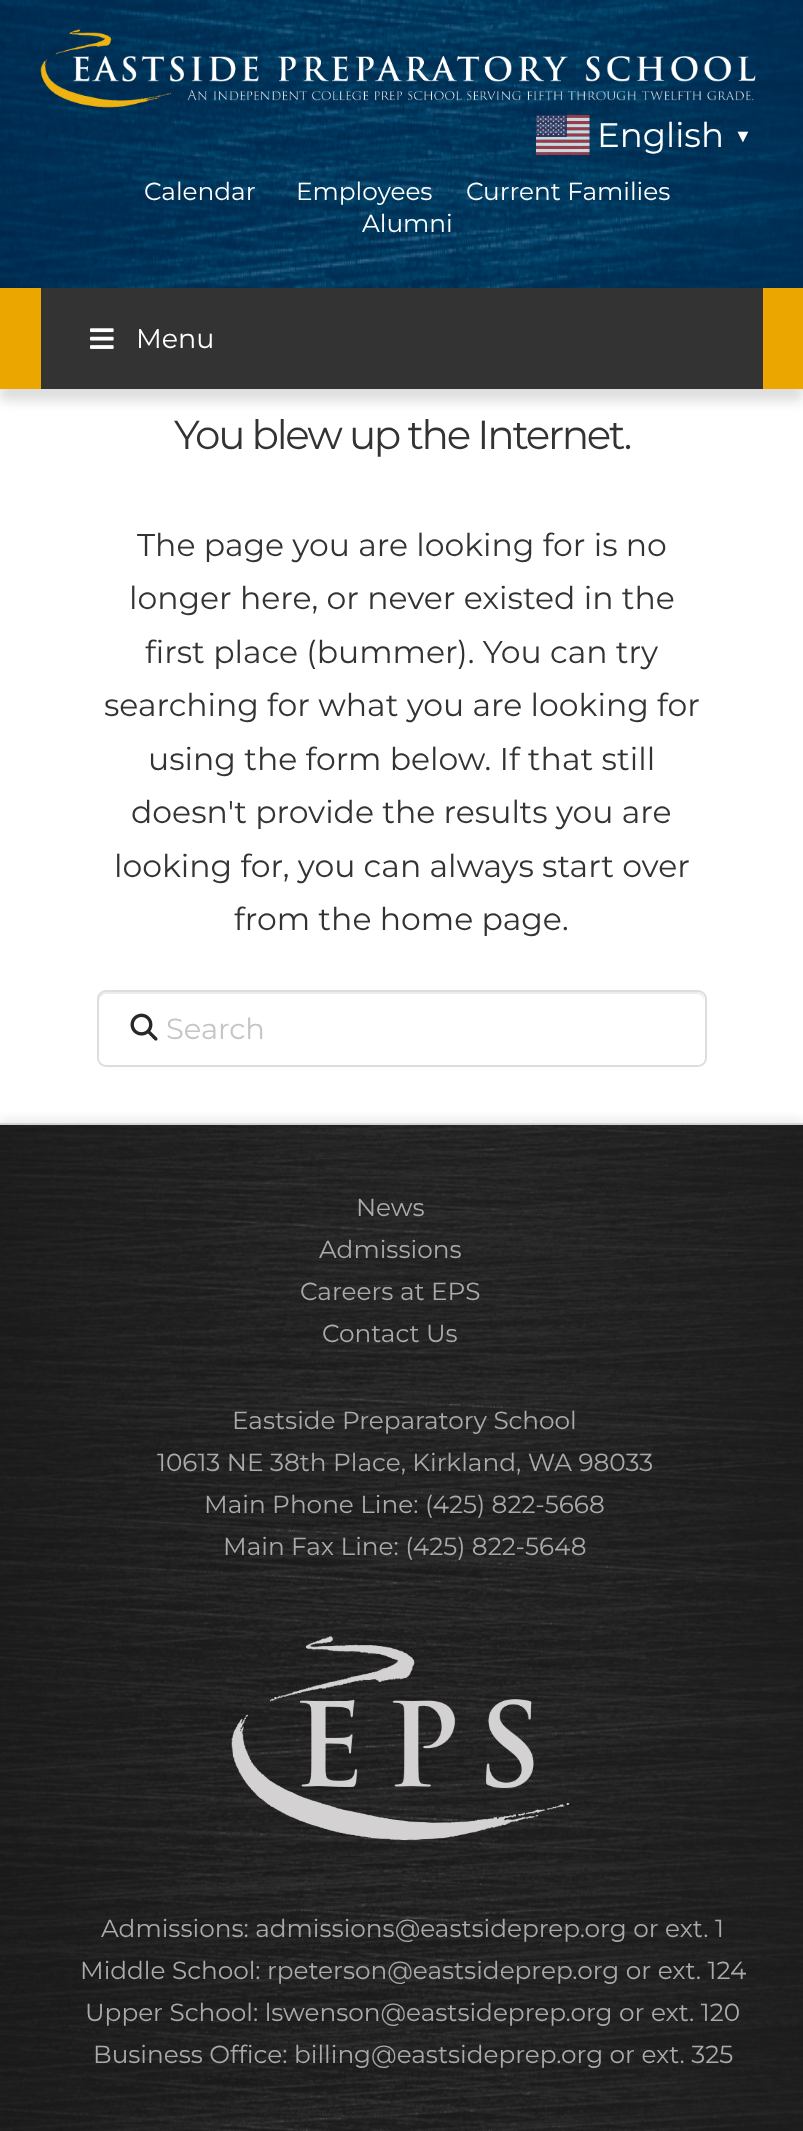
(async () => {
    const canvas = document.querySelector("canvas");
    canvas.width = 803;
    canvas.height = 2131;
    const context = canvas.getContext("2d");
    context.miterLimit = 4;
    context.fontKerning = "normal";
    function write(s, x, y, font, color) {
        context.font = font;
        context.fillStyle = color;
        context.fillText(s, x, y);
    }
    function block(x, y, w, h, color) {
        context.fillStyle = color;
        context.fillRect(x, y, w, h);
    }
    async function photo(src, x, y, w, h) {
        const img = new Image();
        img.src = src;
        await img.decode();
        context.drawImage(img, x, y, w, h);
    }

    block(0, 0, 803, 2131, "rgb(255, 255, 255)");
    context.fillStyle = "rgba(0, 0, 0, 0.13)";
    context.filter = "blur(5.5px)";
    context.beginPath();
    context.rect(0, 299, 803, 102);
    context.fill();
    context.filter = "none";
    await photo("media/1.png", 0, 0, 803, 288);
    await photo("media/2.png", 40, 29, 716, 79);
    await photo("media/3.png", 536, 115, 54, 40);
    write("English", 597, 147, "34px Montserrat", "rgb(255, 255, 255)");
    write("▼", 734, 142, "bold 18px Liberation Sans", "rgb(255, 255, 255)");
    write("Calendar", 144, 200, "24.75px Montserrat", "rgb(255, 255, 255)");
    write("Employees", 296, 200, "24.75px Montserrat", "rgb(255, 255, 255)");
    write("Current Families", 466, 200, "24.75px Montserrat", "rgb(255, 255, 255)");
    write("Alumni", 362, 232, "24.75px Montserrat", "rgb(255, 255, 255)");
    block(0, 288, 803, 101, "rgb(235, 167, 0)");
    block(41, 288, 722, 101, "rgb(51, 51, 51)");
    await photo("media/4.png", 90, 328, 24, 21);
    write("Menu", 136, 348, "27px Montserrat", "rgb(255, 255, 255)");
    context.letterSpacing = "-2.25px";
    write("You blew up the Internet.", 174, 449, "40.5px Montserrat", "rgb(51, 51, 51)");
    context.letterSpacing = "0px";
    write("The page you are looking for is no", 137, 556, "31.5px Montserrat", "rgb(51, 51, 51)");
    write("longer here, or never existed in the", 129, 609, "31.5px Montserrat", "rgb(51, 51, 51)");
    write("first place (bummer). You can try", 145, 663, "31.5px Montserrat", "rgb(51, 51, 51)");
    write("searching for what you are looking for", 104, 716, "31.5px Montserrat", "rgb(51, 51, 51)");
    write("using the form below. If that still", 148, 770, "31.5px Montserrat", "rgb(51, 51, 51)");
    write("doesn't provide the results you are", 131, 823, "31.5px Montserrat", "rgb(51, 51, 51)");
    write("looking for, you can always start over", 114, 877, "31.5px Montserrat", "rgb(51, 51, 51)");
    write("from the home page.", 234, 930, "31.5px Montserrat", "rgb(51, 51, 51)");
    context.fillStyle = "rgb(236, 236, 236)";
    context.beginPath();
    context.moveTo(106, 994);
    context.lineTo(698, 994);
    context.bezierCurveTo(701, 994, 704, 998, 704, 1001);
    context.lineTo(704, 999);
    context.bezierCurveTo(704, 995, 701, 992, 697, 992);
    context.lineTo(106, 992);
    context.bezierCurveTo(102, 992, 99, 995, 99, 999);
    context.lineTo(99, 1001);
    context.bezierCurveTo(99, 998, 102, 994, 106, 994);
    context.closePath();
    context.fill();
    context.beginPath();
    context.roundRect(98, 991, 608, 75, 8);
    context.strokeStyle = "rgb(221, 221, 221)";
    context.lineWidth = 2;
    context.stroke();
    await photo("media/5.png", 130, 1013, 28, 28);
    write("Search", 166, 1039, "29px Montserrat", "rgb(197, 197, 197)");
    context.fillStyle = "rgba(0, 0, 0, 0.07)";
    context.filter = "blur(4px)";
    context.beginPath();
    context.rect(0, 1118, 803, 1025);
    context.fill();
    context.filter = "none";
    await photo("media/6.png", 0, 1125, 803, 1006);
    block(0, 1123, 803, 2, "rgb(212, 212, 212)");
    write("News", 356, 1216, "24.75px Montserrat", "rgb(170, 170, 170)");
    write("Admissions", 319, 1258, "24.75px Montserrat", "rgb(170, 170, 170)");
    write("Careers at EPS", 300, 1300, "24.75px Montserrat", "rgb(170, 170, 170)");
    write("Contact Us", 322, 1342, "24.75px Montserrat", "rgb(170, 170, 170)");
    write("Eastside Preparatory School", 232, 1429, "24.75px Montserrat", "rgb(170, 170, 170)");
    write("10613 NE 38th Place, Kirkland, WA 98033", 157, 1471, "24.75px Montserrat", "rgb(170, 170, 170)");
    write("Main Phone Line: (425) 822-5668", 204, 1513, "24.75px Montserrat", "rgb(170, 170, 170)");
    write("Main Fax Line: (425) 822-5648", 223, 1555, "24.75px Montserrat", "rgb(170, 170, 170)");
    await photo("media/7.png", 231, 1636, 339, 204);
    write("Admissions: admissions@eastsideprep.org or ext. 1", 101, 1937, "24.75px Montserrat", "rgb(170, 170, 170)");
    write("Middle School: rpeterson@eastsideprep.org or ext. 124", 80, 1979, "24.75px Montserrat", "rgb(170, 170, 170)");
    write("Upper School: lswenson@eastsideprep.org or ext. 120", 85, 2021, "24.75px Montserrat", "rgb(170, 170, 170)");
    write("Business Office: billing@eastsideprep.org or ext. 325", 93, 2063, "24.75px Montserrat", "rgb(170, 170, 170)");
})();
